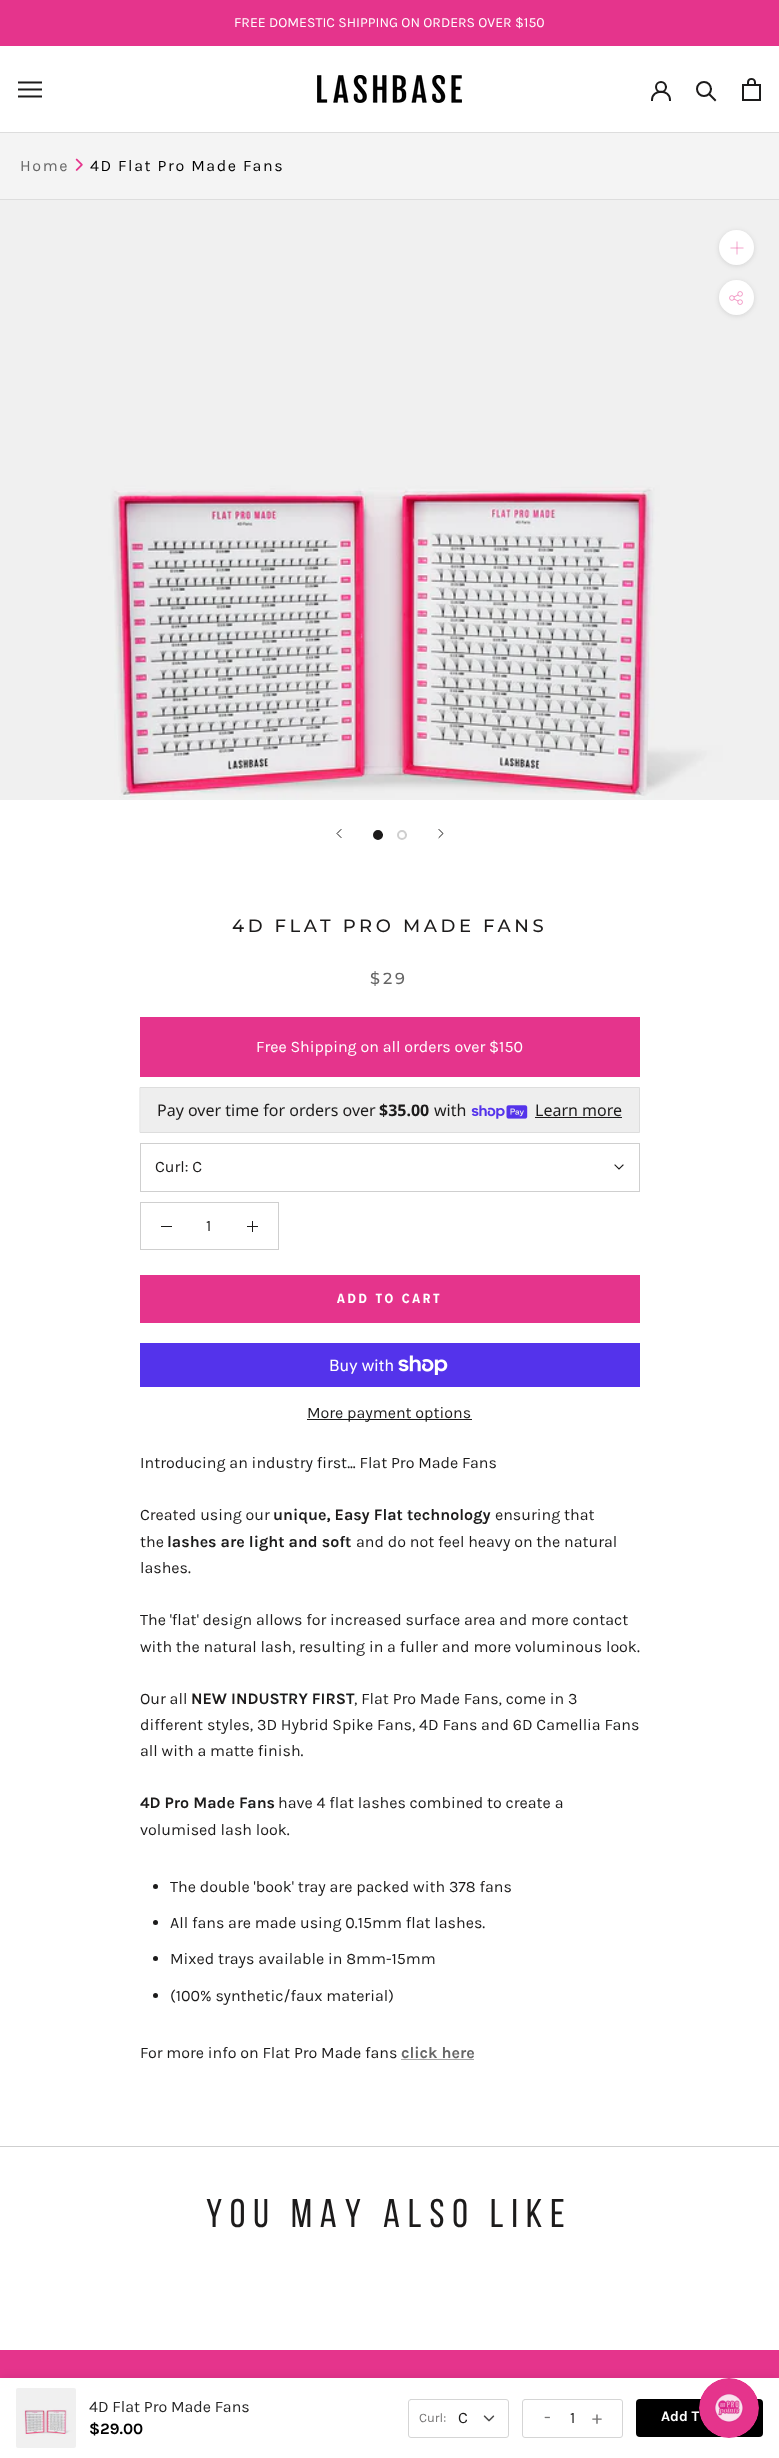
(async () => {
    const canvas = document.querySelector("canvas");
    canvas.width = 779;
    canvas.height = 2458;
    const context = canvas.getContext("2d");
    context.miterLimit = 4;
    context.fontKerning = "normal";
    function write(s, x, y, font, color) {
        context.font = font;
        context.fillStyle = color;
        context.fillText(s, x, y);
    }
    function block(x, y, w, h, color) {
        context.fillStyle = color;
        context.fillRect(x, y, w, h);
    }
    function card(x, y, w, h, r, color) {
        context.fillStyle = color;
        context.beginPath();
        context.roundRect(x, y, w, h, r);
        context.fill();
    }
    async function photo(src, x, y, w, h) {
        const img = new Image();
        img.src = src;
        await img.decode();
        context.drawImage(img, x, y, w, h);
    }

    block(0, 0, 779, 2458, "rgb(255, 255, 255)");
    block(0, 0, 779, 46, "rgb(229, 52, 140)");
    write("FREE DOMESTIC SHIPPING ON ORDERS OVER $150", 234, 27, "14px Karla", "rgb(255, 255, 255)");
    block(0, 132, 779, 1, "rgb(221, 221, 221)");
    await photo("media/1.png", 18, 81, 24, 17);
    await photo("media/2.png", 317, 75, 145, 28);
    context.beginPath();
    context.moveTo(652, 100);
    context.bezierCurveTo(652, 89, 670, 89, 670, 100);
    context.strokeStyle = "rgb(28, 27, 27)";
    context.lineWidth = 2;
    context.lineCap = "square";
    context.stroke();
    context.beginPath();
    context.arc(661, 87, 5, 0, Math.PI * 2);
    context.stroke();
    context.beginPath();
    context.moveTo(715, 100);
    context.lineTo(709.5, 94.5);
    context.stroke();
    context.beginPath();
    context.arc(704, 89, 7, 0, Math.PI * 2);
    context.stroke();
    await photo("media/3.png", 742, 78, 19, 23);
    block(0, 133, 779, 66, "rgb(244, 244, 244)");
    block(0, 199, 779, 1, "rgb(221, 221, 221)");
    context.letterSpacing = "1.6px";
    write("Home", 20, 171, "16px Karla", "rgb(102, 102, 102)");
    await photo("media/4.png", 75, 158, 8, 13);
    write("4D Flat Pro Made Fans", 90, 171, "16px Karla", "rgb(0, 0, 0)");
    await photo("media/5.png", 0, 200, 779, 600);
    context.fillStyle = "rgba(54, 54, 54, 0.15)";
    context.filter = "blur(2.5px)";
    context.beginPath();
    context.roundRect(719, 231, 35, 35, 17.5);
    context.fill();
    context.filter = "none";
    context.fillStyle = "rgb(255, 255, 255)";
    context.beginPath();
    context.arc(736.5, 247.5, 17.5, 0, Math.PI * 2);
    context.fill();
    context.beginPath();
    context.moveTo(737, 242);
    context.lineTo(737, 254);
    context.strokeStyle = "rgb(242, 154, 198)";
    context.lineWidth = 0.9;
    context.stroke();
    context.beginPath();
    context.moveTo(731, 248);
    context.lineTo(743, 248);
    context.strokeStyle = "rgba(229, 52, 140, 0.5)";
    context.stroke();
    context.fillStyle = "rgba(54, 54, 54, 0.15)";
    context.filter = "blur(2.5px)";
    context.beginPath();
    context.roundRect(719, 281, 35, 35, 17.5);
    context.fill();
    context.filter = "none";
    context.fillStyle = "rgb(255, 255, 255)";
    context.beginPath();
    context.arc(736.5, 297.5, 17.5, 0, Math.PI * 2);
    context.fill();
    await photo("media/6.png", 729, 291, 14, 14);
    context.beginPath();
    context.moveTo(341, 837.5);
    context.lineTo(337, 833.5);
    context.lineTo(341, 829.5);
    context.strokeStyle = "rgb(28, 27, 27)";
    context.lineWidth = 1;
    context.stroke();
    context.fillStyle = "rgb(28, 27, 27)";
    context.beginPath();
    context.arc(378, 835, 4, 0, Math.PI * 2);
    context.fill();
    context.lineWidth = 2;
    context.stroke();
    context.beginPath();
    context.arc(402, 835, 4, 0, Math.PI * 2);
    context.strokeStyle = "rgb(207, 207, 207)";
    context.stroke();
    context.beginPath();
    context.moveTo(439, 837.5);
    context.lineTo(443, 833.5);
    context.lineTo(439, 829.5);
    context.strokeStyle = "rgb(28, 27, 27)";
    context.lineWidth = 1;
    context.stroke();
    context.letterSpacing = "3.6px";
    write("4D FLAT PRO MADE FANS", 232, 932, "500 18px Montserrat", "rgb(28, 27, 27)");
    context.letterSpacing = "3px";
    write("$29", 370, 984, "500 16px Montserrat", "rgb(102, 102, 102)");
    block(140, 1017, 500, 60, "rgb(229, 52, 140)");
    context.letterSpacing = "0px";
    write("Free Shipping on all orders over $150", 256, 1052, "16px Karla", "rgb(255, 255, 255)");
    context.fillStyle = "rgb(238, 238, 238)";
    context.beginPath();
    context.rect(140.5, 1087.5, 499, 45);
    context.fill();
    context.strokeStyle = "rgb(221, 221, 221)";
    context.stroke();
    write("Pay over time for orders over", 157, 1116, "16px Noto Sans", "rgb(28, 27, 27)");
    write("$35.00", 379, 1116, "bold 16px Noto Sans", "rgb(28, 27, 27)");
    write("with", 434, 1116, "16px Noto Sans", "rgb(28, 27, 27)");
    await photo("media/7.png", 471, 1105, 57, 14);
    write("Learn more", 535, 1116, "16px Noto Sans", "rgb(28, 27, 27)");
    block(535, 1117, 87, 1, "rgb(28, 27, 27)");
    context.strokeStyle = "rgb(207, 207, 207)";
    context.strokeRect(140.5, 1143.5, 499, 48);
    write("Curl: C", 155, 1172, "16px Karla", "rgb(28, 27, 27)");
    context.beginPath();
    context.moveTo(623, 1165);
    context.lineTo(619, 1169);
    context.lineTo(615, 1165);
    context.strokeStyle = "rgb(28, 27, 27)";
    context.lineWidth = 1.1;
    context.stroke();
    context.strokeStyle = "rgb(207, 207, 207)";
    context.lineWidth = 1;
    context.strokeRect(140.5, 1202.5, 138, 47);
    block(161, 1226, 11, 1, "rgb(28, 27, 27)");
    write("1", 206, 1231, "16px Karla", "rgb(28, 27, 27)");
    block(252, 1221, 1, 11, "rgb(28, 27, 27)");
    block(247, 1226, 11, 1, "rgb(28, 27, 27)");
    block(140, 1275, 500, 48, "rgb(229, 52, 140)");
    context.letterSpacing = "2.75px";
    write("ADD TO CART", 337, 1303, "bold 14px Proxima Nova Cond", "rgb(255, 255, 255)");
    block(140, 1343, 500, 44, "rgb(84, 51, 235)");
    context.letterSpacing = "0px";
    write("Buy with", 329, 1371, "16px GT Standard", "rgb(255, 255, 255)");
    await photo("media/8.png", 398, 1355, 50, 20);
    block(307, 1419, 165, 1, "rgb(28, 27, 27)");
    write("More payment options", 307, 1418, "16px Karla", "rgb(28, 27, 27)");
    write("Introducing an industry first... Flat Pro Made Fans", 140, 1468, "16px Karla", "rgb(28, 27, 27)");
    write("Created using our", 140, 1520, "16px Karla", "rgb(28, 27, 27)");
    write("unique, Easy Flat technology", 273, 1520, "bold 16px Karla", "rgb(28, 27, 27)");
    write("ensuring that", 495, 1520, "16px Karla", "rgb(28, 27, 27)");
    write("the", 140, 1547, "16px Karla", "rgb(28, 27, 27)");
    write("lashes are light and soft", 167, 1547, "bold 16px Karla", "rgb(28, 27, 27)");
    write("and do not feel heavy on the natural", 356, 1547, "16px Karla", "rgb(28, 27, 27)");
    write("lashes.", 140, 1573, "16px Karla", "rgb(28, 27, 27)");
    write("The 'flat' design allows for increased surface area and more contact", 140, 1625, "16px Karla", "rgb(28, 27, 27)");
    write("with the natural lash, resulting in a fuller and more voluminous look.", 140, 1652, "16px Karla", "rgb(28, 27, 27)");
    write("Our all", 140, 1704, "16px Karla", "rgb(28, 27, 27)");
    write("NEW INDUSTRY FIRST", 191, 1704, "bold 16px Karla", "rgb(28, 27, 27)");
    write(", Flat Pro Made Fans, come in 3", 354, 1704, "16px Karla", "rgb(28, 27, 27)");
    write("different styles, 3D Hybrid Spike Fans, 4D Fans and 6D Camellia Fans", 140, 1730, "16px Karla", "rgb(28, 27, 27)");
    write("all with a matte finish.", 140, 1756, "16px Karla", "rgb(28, 27, 27)");
    write("4D Pro Made Fans", 140, 1808, "bold 16px Karla", "rgb(28, 27, 27)");
    write("have 4 flat lashes combined to create a", 278, 1808, "16px Karla", "rgb(28, 27, 27)");
    write("volumised lash look.", 140, 1835, "16px Karla", "rgb(28, 27, 27)");
    context.beginPath();
    context.arc(155.5, 1886.5, 2.5, 0, Math.PI * 2);
    context.fill();
    write("The double 'book' tray are packed with 378 fans", 170, 1892, "16px Karla", "rgb(28, 27, 27)");
    context.beginPath();
    context.arc(155.5, 1922.5, 2.5, 0, Math.PI * 2);
    context.fill();
    write("All fans are made using 0.15mm flat lashes.", 170, 1928, "16px Karla", "rgb(28, 27, 27)");
    context.beginPath();
    context.arc(155.5, 1958.5, 2.5, 0, Math.PI * 2);
    context.fill();
    write("Mixed trays available in 8mm-15mm", 170, 1964, "16px Karla", "rgb(28, 27, 27)");
    context.beginPath();
    context.arc(155.5, 1995.5, 2.5, 0, Math.PI * 2);
    context.fill();
    write("(100% synthetic/faux material)", 170, 2001, "16px Karla", "rgb(28, 27, 27)");
    write("For more info on Flat Pro Made fans", 140, 2058, "16px Karla", "rgb(28, 27, 27)");
    write("click here", 401, 2058, "bold 16px Karla", "rgb(102, 102, 102)");
    block(401, 2059, 73, 1, "rgb(166, 166, 166)");
    block(0, 2146, 779, 1, "rgb(207, 207, 207)");
    context.letterSpacing = "8px";
    write("YOU MAY ALSO LIKE", 206, 2227, "40px Bebas Neue", "rgb(28, 27, 27)");
    block(0, 2350, 779, 28, "rgb(229, 52, 140)");
    context.fillStyle = "rgba(0, 0, 0, 0.09)";
    context.filter = "blur(5px)";
    context.beginPath();
    context.rect(0, 2378, 779, 80);
    context.fill();
    context.filter = "none";
    block(0, 2378, 779, 80, "rgb(255, 255, 255)");
    await photo("media/9.png", 16, 2388, 60, 60);
    context.letterSpacing = "0px";
    write("4D Flat Pro Made Fans", 89, 2412, "16px Karla", "rgb(38, 38, 38)");
    write("$29.00", 89, 2434, "bold 16px Karla", "rgb(0, 0, 0)");
    context.beginPath();
    context.roundRect(408.5, 2399.5, 100, 38, 2.5);
    context.strokeStyle = "rgb(213, 213, 213)";
    context.stroke();
    write("Curl:", 419, 2422, "13px Karla", "rgb(119, 118, 118)");
    write("C", 458, 2423, "16px Karla", "rgb(28, 27, 27)");
    await photo("media/10.png", 483, 2415, 12, 7);
    context.beginPath();
    context.roundRect(522.5, 2399.5, 100, 38, 2.5);
    context.stroke();
    write("-", 544, 2423, "19px Karla", "rgb(119, 118, 118)");
    write("1", 570, 2423, "16px Karla", "rgb(28, 27, 27)");
    write("+", 592, 2424, "19px Karla", "rgb(119, 118, 118)");
    card(636, 2399, 127, 38, 4, "rgb(0, 0, 0)");
    write("Add T", 661, 2421, "bold 14.5px Karla", "rgb(255, 255, 255)");
    await photo("media/11.png", 699, 2378, 60, 60);
})();
